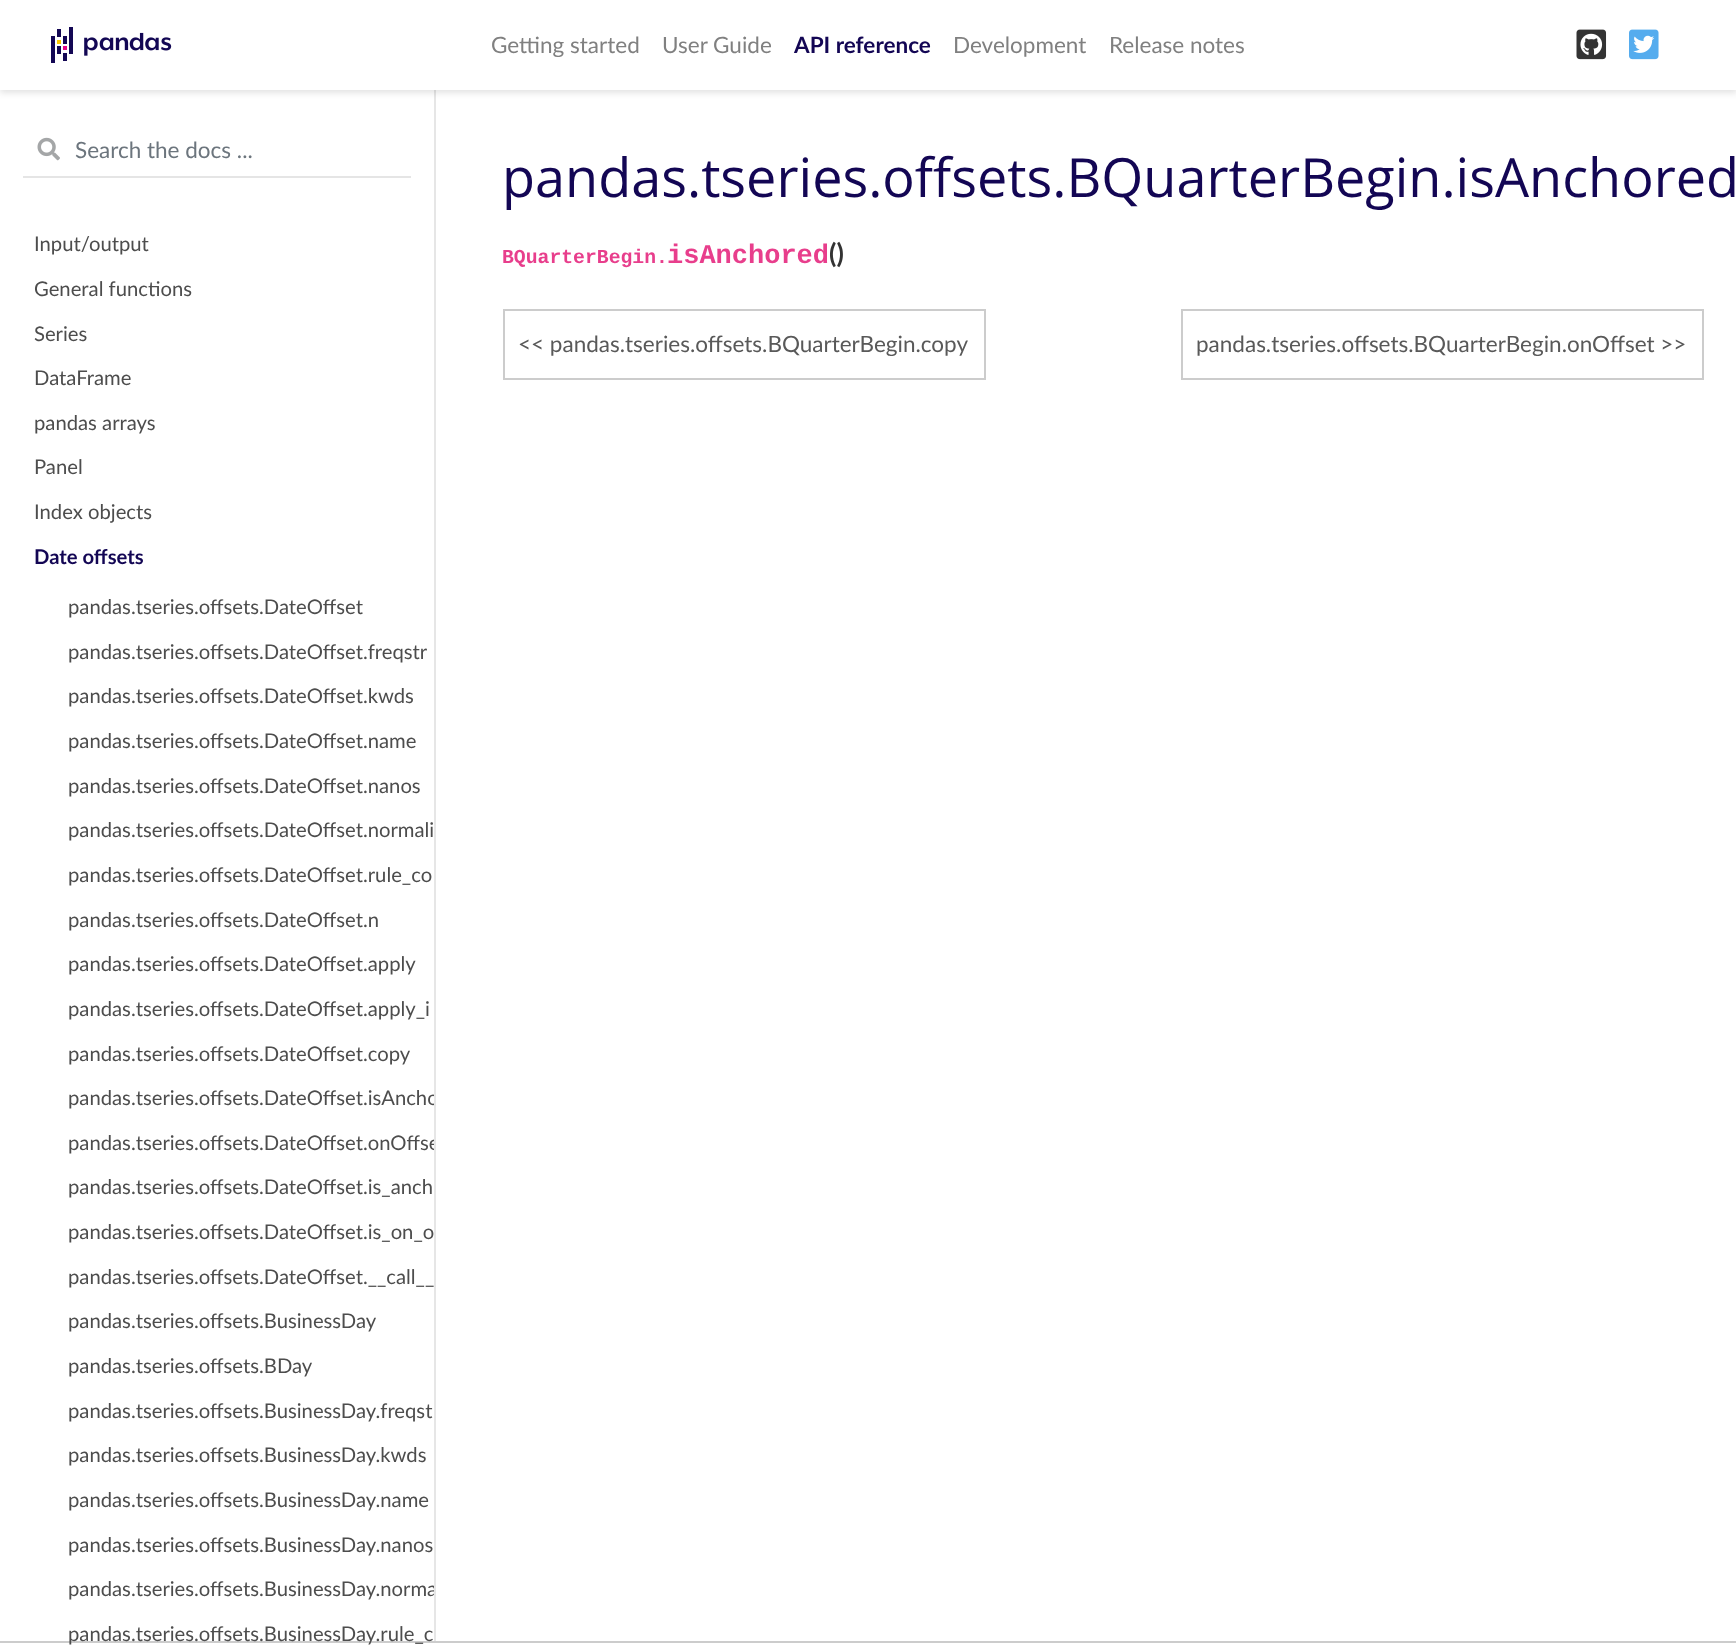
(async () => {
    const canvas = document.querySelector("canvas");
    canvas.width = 1736;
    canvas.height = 1652;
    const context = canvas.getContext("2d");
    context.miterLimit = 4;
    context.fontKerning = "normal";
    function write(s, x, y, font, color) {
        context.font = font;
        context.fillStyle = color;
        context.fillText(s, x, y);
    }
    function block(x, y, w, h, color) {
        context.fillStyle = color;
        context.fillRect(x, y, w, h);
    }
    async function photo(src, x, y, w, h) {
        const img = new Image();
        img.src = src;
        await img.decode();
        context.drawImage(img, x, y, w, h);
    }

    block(0, 0, 1736, 1652, "rgb(255, 255, 255)");
    block(434, 90, 2, 1551, "rgb(230, 230, 230)");
    context.fillStyle = "rgba(0, 0, 0, 0.11)";
    context.filter = "blur(3px)";
    context.beginPath();
    context.rect(0, 3, 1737, 90);
    context.fill();
    context.filter = "none";
    block(0, 0, 1736, 90, "rgb(255, 255, 255)");
    await photo("media/1.png", 51, 27, 121, 36);
    write("Getting started", 491, 53, "22.5px Lato", "rgb(128, 128, 128)");
    write("User Guide", 662, 53, "22.5px Lato", "rgb(128, 128, 128)");
    write("API reference", 794, 53, "bold 22.5px Lato", "rgb(19, 6, 84)");
    write("Development", 953, 53, "22.5px Lato", "rgb(128, 128, 128)");
    write("Release notes", 1109, 53, "22.5px Lato", "rgb(128, 128, 128)");
    await photo("media/2.png", 1576, 29, 31, 31);
    await photo("media/3.png", 1629, 29, 30, 31);
    await photo("media/4.png", 37, 137, 23, 24);
    block(23, 176, 388, 2, "rgb(229, 229, 229)");
    write("Search the docs ...", 75, 158, "22.5px Lato", "rgb(108, 117, 125)");
    write("Input/output", 34, 251, "20.25px Lato", "rgb(77, 77, 77)");
    write("General functions", 34, 296, "20.25px Lato", "rgb(77, 77, 77)");
    write("Series", 34, 341, "20.25px Lato", "rgb(77, 77, 77)");
    write("DataFrame", 34, 385, "20.25px Lato", "rgb(77, 77, 77)");
    write("pandas arrays", 34, 430, "20.25px Lato", "rgb(77, 77, 77)");
    write("Panel", 34, 474, "20.25px Lato", "rgb(77, 77, 77)");
    write("Index objects", 34, 519, "20.25px Lato", "rgb(77, 77, 77)");
    write("Date offsets", 34, 564, "bold 20.25px Lato", "rgb(19, 6, 84)");
    write("pandas.tseries.offsets.DateOffset", 68, 614, "20.25px Lato", "rgb(77, 77, 77)");
    write("pandas.tseries.offsets.DateOffset.freqstr", 68, 659, "20.25px Lato", "rgb(77, 77, 77)");
    write("pandas.tseries.offsets.DateOffset.kwds", 68, 703, "20.25px Lato", "rgb(77, 77, 77)");
    write("pandas.tseries.offsets.DateOffset.name", 68, 748, "20.25px Lato", "rgb(77, 77, 77)");
    write("pandas.tseries.offsets.DateOffset.nanos", 68, 793, "20.25px Lato", "rgb(77, 77, 77)");
    write("pandas.tseries.offsets.DateOffset.normali", 68, 837, "20.25px Lato", "rgb(77, 77, 77)");
    write("pandas.tseries.offsets.DateOffset.rule_co", 68, 882, "20.25px Lato", "rgb(77, 77, 77)");
    write("pandas.tseries.offsets.DateOffset.n", 68, 927, "20.25px Lato", "rgb(77, 77, 77)");
    write("pandas.tseries.offsets.DateOffset.apply", 68, 971, "20.25px Lato", "rgb(77, 77, 77)");
    write("pandas.tseries.offsets.DateOffset.apply_i", 68, 1016, "20.25px Lato", "rgb(77, 77, 77)");
    write("pandas.tseries.offsets.DateOffset.copy", 68, 1061, "20.25px Lato", "rgb(77, 77, 77)");
    context.save();
    context.beginPath();
    context.rect(0, 200, 434, 1450);
    context.clip();
    write("pandas.tseries.offsets.DateOffset.isAncho", 68, 1105, "20.25px Lato", "rgb(77, 77, 77)");
    write("pandas.tseries.offsets.DateOffset.onOffse", 68, 1150, "20.25px Lato", "rgb(77, 77, 77)");
    context.restore();
    write("pandas.tseries.offsets.DateOffset.is_anch", 68, 1194, "20.25px Lato", "rgb(77, 77, 77)");
    write("pandas.tseries.offsets.DateOffset.is_on_o", 68, 1239, "20.25px Lato", "rgb(77, 77, 77)");
    write("pandas.tseries.offsets.DateOffset.__call__", 68, 1284, "20.25px Lato", "rgb(77, 77, 77)");
    write("pandas.tseries.offsets.BusinessDay", 68, 1328, "20.25px Lato", "rgb(77, 77, 77)");
    write("pandas.tseries.offsets.BDay", 68, 1373, "20.25px Lato", "rgb(77, 77, 77)");
    write("pandas.tseries.offsets.BusinessDay.freqst", 68, 1418, "20.25px Lato", "rgb(77, 77, 77)");
    write("pandas.tseries.offsets.BusinessDay.kwds", 68, 1462, "20.25px Lato", "rgb(77, 77, 77)");
    write("pandas.tseries.offsets.BusinessDay.name", 68, 1507, "20.25px Lato", "rgb(77, 77, 77)");
    write("pandas.tseries.offsets.BusinessDay.nanos", 68, 1552, "20.25px Lato", "rgb(77, 77, 77)");
    context.save();
    context.beginPath();
    context.rect(0, 200, 434, 1450);
    context.clip();
    write("pandas.tseries.offsets.BusinessDay.norma", 68, 1596, "20.25px Lato", "rgb(77, 77, 77)");
    context.restore();
    block(0, 1641, 1736, 2, "rgb(204, 204, 204)");
    write("pandas.tseries.offsets.BusinessDay.rule_c", 68, 1641, "20.25px Lato", "rgb(77, 77, 77)");
    write("pandas.tseries.offsets.BQuarterBegin.isAnchored", 502, 197, "54px Open Sans", "rgb(19, 6, 84)");
    write("BQuarterBegin.", 502, 263, "bold 19.75px Liberation Mono", "rgb(232, 62, 140)");
    write("isAnchored", 667, 263, "bold 27px Liberation Mono", "rgb(232, 62, 140)");
    write("()", 829, 263, "bold 27px Lato", "rgb(51, 51, 51)");
    context.strokeStyle = "rgb(204, 204, 204)";
    context.lineWidth = 2;
    context.strokeRect(504, 310, 481, 69);
    write("<< pandas.tseries.offsets.BQuarterBegin.copy", 518, 352, "22.5px Lato", "rgb(89, 89, 89)");
    context.strokeRect(1182, 310, 521, 69);
    write("pandas.tseries.offsets.BQuarterBegin.onOffset >>", 1196, 352, "22.5px Lato", "rgb(89, 89, 89)");
})();
